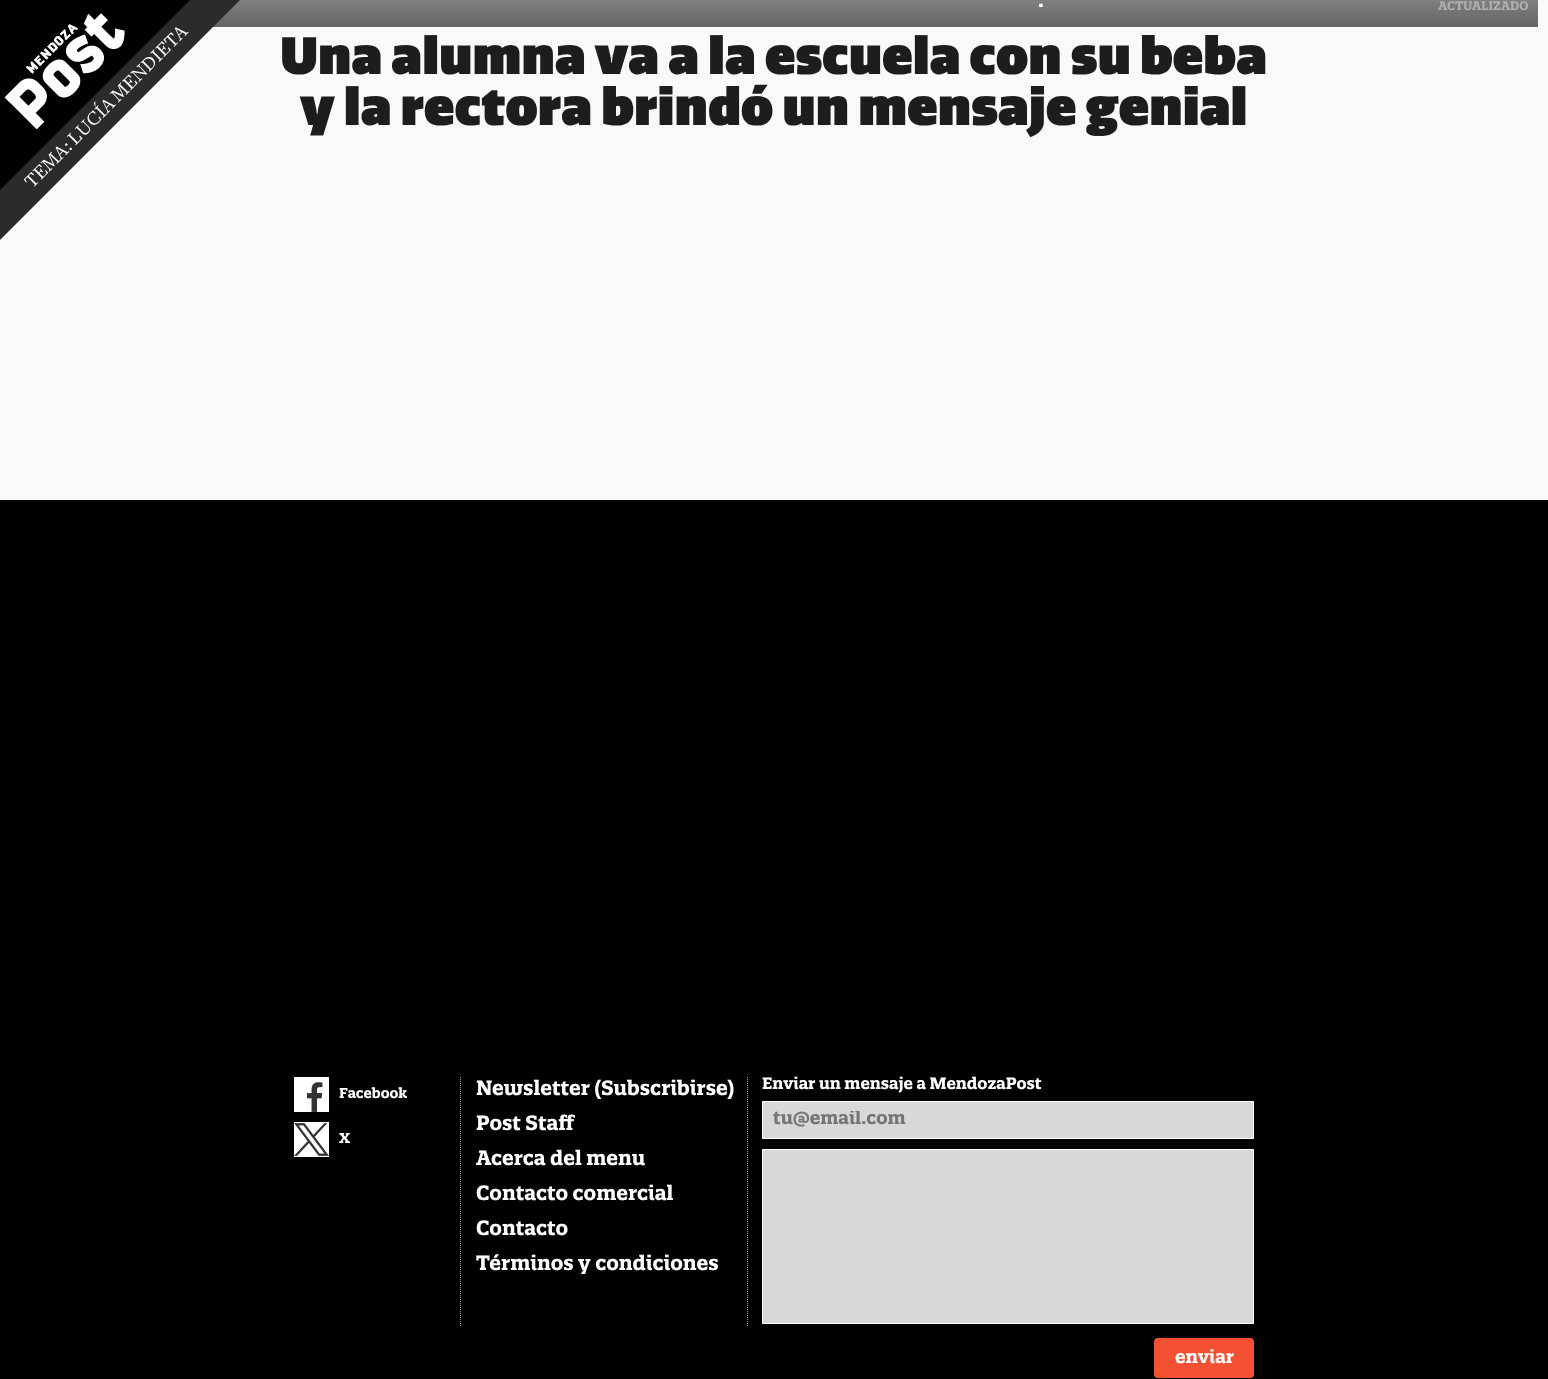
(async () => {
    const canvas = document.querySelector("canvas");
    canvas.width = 1548;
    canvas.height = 1379;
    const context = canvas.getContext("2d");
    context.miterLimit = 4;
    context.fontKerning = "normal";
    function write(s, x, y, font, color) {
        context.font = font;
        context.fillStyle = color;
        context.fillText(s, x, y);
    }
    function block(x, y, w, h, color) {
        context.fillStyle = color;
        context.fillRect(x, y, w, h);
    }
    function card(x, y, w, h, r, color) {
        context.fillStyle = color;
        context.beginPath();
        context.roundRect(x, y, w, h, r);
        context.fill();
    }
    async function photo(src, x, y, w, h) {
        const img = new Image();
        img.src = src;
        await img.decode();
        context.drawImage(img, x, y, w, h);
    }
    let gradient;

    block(0, 0, 1548, 1379, "rgb(249, 249, 249)");
    await photo("media/1.png", 0, 0, 190, 190);
    gradient = context.createLinearGradient(774, -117, 774, 27);
    gradient.addColorStop(0, "rgb(249, 249, 249)");
    gradient.addColorStop(1, "rgb(100, 100, 100)");
    context.fillStyle = gradient;
    context.fillRect(213, 0, 1325, 27);
    context.fillStyle = "rgb(43, 43, 43)";
    context.beginPath();
    context.moveTo(-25, 215);
    context.lineTo(215, -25);
    context.lineTo(240, 0);
    context.lineTo(0, 240);
    context.closePath();
    context.fill();
    context.font = "20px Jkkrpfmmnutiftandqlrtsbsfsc";
    context.fillStyle = "rgb(255, 255, 255)";
    context.save();
    context.translate(32, 189);
    context.rotate(-45 * Math.PI / 180);
    context.fillText("TEMA: LUCÍA MENDIETA", 0, 0);
    context.restore();
    write(".", 1038, 7, "bold 21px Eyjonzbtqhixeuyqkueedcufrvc", "rgb(255, 255, 255)");
    write("ACTUALIZADO", 1438, 10, "bold 12px Eyjonzbtqhixeuyqkueedcufrvc", "rgb(175, 175, 175)");
    write("Una alumna va a la escuela con su beba", 280, 74, "900 51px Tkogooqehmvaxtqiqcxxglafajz", "rgb(29, 29, 27)");
    write("y la rectora brindó un mensaje genial", 300, 125, "900 51px Tkogooqehmvaxtqiqcxxglafajz", "rgb(29, 29, 27)");
    block(0, 500, 1548, 879, "rgb(0, 0, 0)");
    context.beginPath();
    context.moveTo(460.5, 1077);
    context.lineTo(460.5, 1327);
    context.strokeStyle = "rgb(153, 153, 153)";
    context.setLineDash([1, 1]);
    context.stroke();
    block(294, 1077, 35, 35, "rgb(255, 255, 255)");
    await photo("media/2.png", 307, 1082, 16, 30);
    write("Facebook", 339, 1098, "bold 14px Eyjonzbtqhixeuyqkueedcufrvc", "rgb(255, 255, 255)");
    block(294, 1122, 35, 35, "rgb(255, 255, 255)");
    await photo("media/3.png", 294, 1123, 35, 33);
    write("X", 339, 1143, "bold 14px Eyjonzbtqhixeuyqkueedcufrvc", "rgb(255, 255, 255)");
    context.beginPath();
    context.moveTo(747.5, 1077);
    context.lineTo(747.5, 1327);
    context.stroke();
    write("Newsletter (Subscribirse)", 476, 1095, "bold 20px Eyjonzbtqhixeuyqkueedcufrvc", "rgb(255, 255, 255)");
    write("Post Staff", 476, 1130, "bold 20px Eyjonzbtqhixeuyqkueedcufrvc", "rgb(255, 255, 255)");
    write("Acerca del menu", 476, 1165, "bold 20px Eyjonzbtqhixeuyqkueedcufrvc", "rgb(255, 255, 255)");
    write("Contacto comercial", 476, 1200, "bold 20px Eyjonzbtqhixeuyqkueedcufrvc", "rgb(255, 255, 255)");
    write("Contacto", 476, 1235, "bold 20px Eyjonzbtqhixeuyqkueedcufrvc", "rgb(255, 255, 255)");
    write("Términos y condiciones", 476, 1270, "bold 20px Eyjonzbtqhixeuyqkueedcufrvc", "rgb(255, 255, 255)");
    write("Enviar un mensaje a MendozaPost", 762, 1089, "bold 16px Eyjonzbtqhixeuyqkueedcufrvc", "rgb(255, 255, 255)");
    context.fillStyle = "rgb(217, 216, 216)";
    context.beginPath();
    context.rect(762.5, 1101.5, 491, 37);
    context.fill();
    context.strokeStyle = "rgb(255, 255, 255)";
    context.setLineDash([]);
    context.stroke();
    context.save();
    context.beginPath();
    context.rect(773, 1111, 470, 18);
    context.clip();
    write("tu@email.com", 773, 1124, "bold 18px Eyjonzbtqhixeuyqkueedcufrvc", "rgb(117, 117, 117)");
    context.restore();
    context.beginPath();
    context.rect(762.5, 1149.5, 491, 174);
    context.fill();
    context.stroke();
    card(1154, 1338, 100, 40, 4, "rgb(243, 81, 50)");
    write("enviar", 1175, 1363, "bold 18px Eyjonzbtqhixeuyqkueedcufrvc", "rgb(255, 255, 255)");
})();
